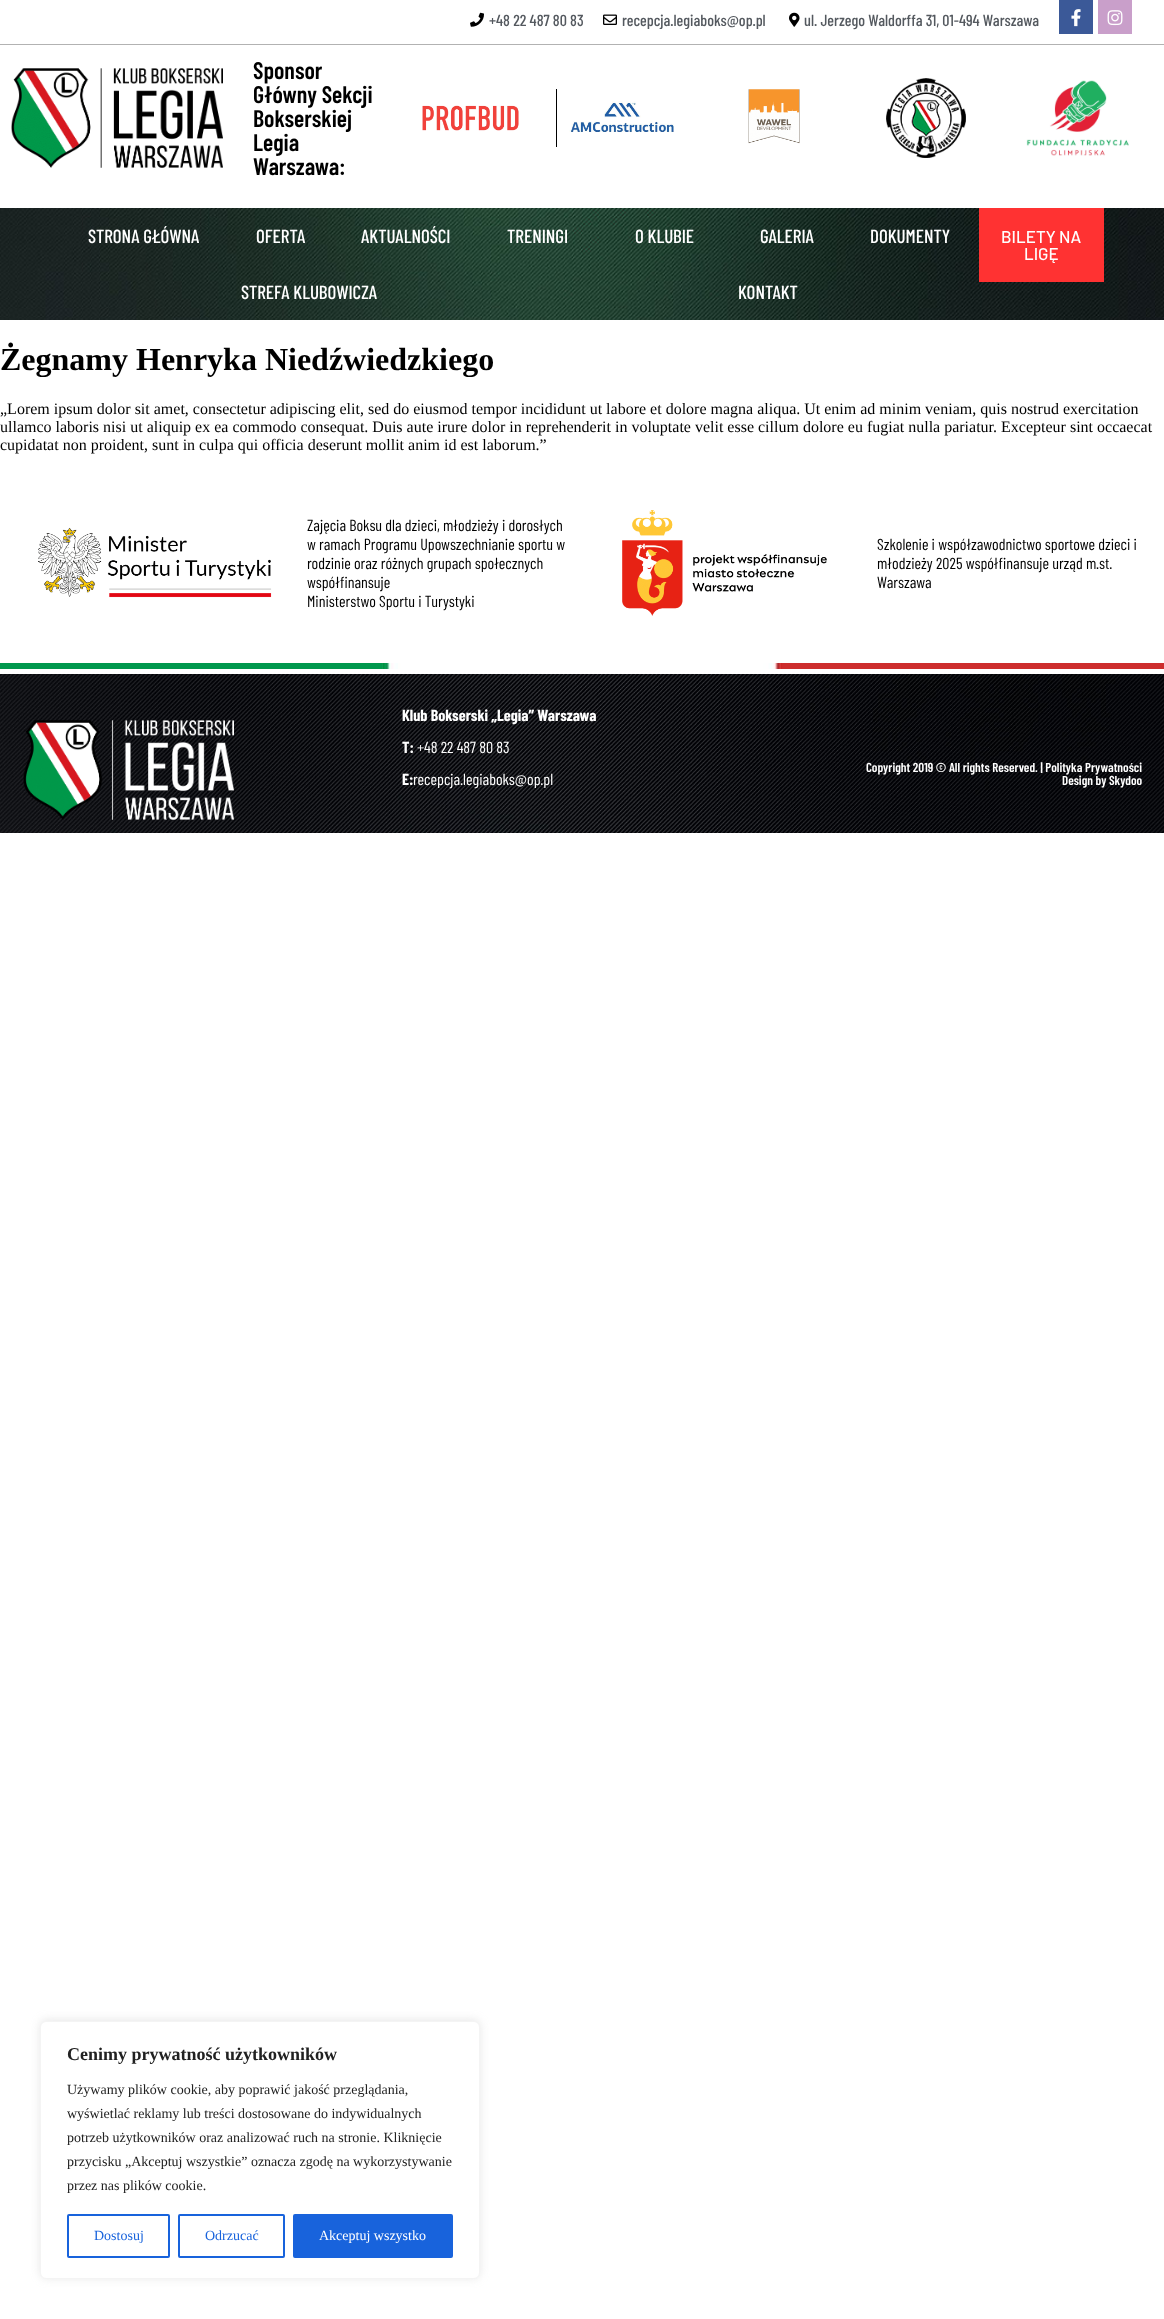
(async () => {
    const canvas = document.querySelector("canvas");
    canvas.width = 1164;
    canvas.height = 2319;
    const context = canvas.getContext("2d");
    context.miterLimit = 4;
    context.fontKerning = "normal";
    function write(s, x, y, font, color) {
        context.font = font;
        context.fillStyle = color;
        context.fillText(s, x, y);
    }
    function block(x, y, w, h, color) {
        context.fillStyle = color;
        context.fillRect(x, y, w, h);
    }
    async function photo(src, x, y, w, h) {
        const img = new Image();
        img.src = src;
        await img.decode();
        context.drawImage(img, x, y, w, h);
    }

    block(0, 0, 1164, 2319, "rgb(255, 255, 255)");
    block(0, 44, 1164, 1, "rgb(178, 178, 178)");
    await photo("media/1.png", 470, 12, 14, 15);
    write("+48 22 487 80 83", 489, 26, "500 16px Barlow Condensed", "rgb(84, 89, 95)");
    await photo("media/2.png", 603, 14, 14, 11);
    context.save();
    context.beginPath();
    context.rect(22, 10, 1017, 19);
    context.clip();
    write("recepcja.legiaboks@op.pl", 622, 26, "500 16px Barlow Condensed", "rgb(84, 89, 95)");
    context.restore();
    await photo("media/3.png", 789, 12, 11, 15);
    write("ul. Jerzego Waldorffa 31, 01-494 Warszawa", 804, 26, "500 16px Barlow Condensed", "rgb(84, 89, 95)");
    block(1059, 0, 34, 34, "rgb(59, 89, 152)");
    await photo("media/4.png", 1071, 9, 10, 18);
    block(1098, 0, 34, 34, "rgb(201, 159, 202)");
    await photo("media/5.png", 1107, 10, 16, 16);
    await photo("media/6.png", 11, 68, 212, 100);
    write("Sponsor", 253, 79, "600 24px Barlow Condensed", "rgb(0, 0, 0)");
    write("Główny Sekcji", 253, 103, "600 24px Barlow Condensed", "rgb(0, 0, 0)");
    write("Bokserskiej", 253, 127, "600 24px Barlow Condensed", "rgb(0, 0, 0)");
    write("Legia", 253, 151, "600 24px Barlow Condensed", "rgb(0, 0, 0)");
    write("Warszawa:", 253, 175, "600 24px Barlow Condensed", "rgb(0, 0, 0)");
    await photo("media/7.png", 422, 105, 97, 26);
    block(556, 89, 1, 58, "rgb(0, 0, 0)");
    await photo("media/8.png", 569, 101, 105, 31);
    await photo("media/9.png", 748, 89, 52, 55);
    await photo("media/10.png", 886, 78, 80, 80);
    await photo("media/11.png", 1026, 80, 103, 76);
    await photo("media/12.png", 0, 208, 1164, 112);
    write("STRONA GŁÓWNA", 88, 243, "500 19px Barlow Condensed", "rgb(255, 255, 255)");
    write("OFERTA", 256, 243, "500 19px Barlow Condensed", "rgb(255, 255, 255)");
    write("AKTUALNOŚCI", 361, 243, "500 19px Barlow Condensed", "rgb(255, 255, 255)");
    write("TRENINGI", 507, 243, "500 19px Barlow Condensed", "rgb(255, 255, 255)");
    write("O KLUBIE", 635, 243, "500 19px Barlow Condensed", "rgb(255, 255, 255)");
    write("GALERIA", 760, 243, "500 19px Barlow Condensed", "rgb(255, 255, 255)");
    write("DOKUMENTY", 870, 243, "500 19px Barlow Condensed", "rgb(255, 255, 255)");
    write("STREFA KLUBOWICZA", 241, 299, "500 19px Barlow Condensed", "rgb(255, 255, 255)");
    write("KONTAKT", 738, 299, "500 19px Barlow Condensed", "rgb(255, 255, 255)");
    block(979, 208, 125, 74, "rgb(255, 50, 50)");
    write("BILETY NA", 1001, 243, "500 17px Barlow", "rgb(255, 255, 255)");
    write("LIGĘ", 1024, 260, "500 17px Barlow", "rgb(255, 255, 255)");
    write("Żegnamy Henryka Niedźwiedzkiego", 0, 370, "bold 32px Liberation Serif", "rgb(0, 0, 0)");
    write("„Lorem ipsum dolor sit amet, consectetur adipiscing elit, sed do eiusmod tempor incididunt ut labore et dolore magna aliqua. Ut enim ad minim veniam, quis nostrud exercitation", 0, 414, "16px Liberation Serif", "rgb(0, 0, 0)");
    write("ullamco laboris nisi ut aliquip ex ea commodo consequat. Duis aute irure dolor in reprehenderit in voluptate velit esse cillum dolore eu fugiat nulla pariatur. Excepteur sint occaecat", 0, 432, "16px Liberation Serif", "rgb(0, 0, 0)");
    write("cupidatat non proident, sunt in culpa qui officia deserunt mollit anim id est laborum.”", 0, 450, "16px Liberation Serif", "rgb(0, 0, 0)");
    await photo("media/13.png", 38, 527, 234, 71);
    write("Zajęcia Boksu dla dzieci, młodzieży i dorosłych", 307, 531, "16px Barlow Condensed", "rgb(0, 0, 0)");
    write("w ramach Programu Upowszechnianie sportu w", 307, 550, "16px Barlow Condensed", "rgb(0, 0, 0)");
    write("rodzinie oraz różnych grupach społecznych", 307, 569, "16px Barlow Condensed", "rgb(0, 0, 0)");
    write("współfinansuje", 307, 588, "16px Barlow Condensed", "rgb(0, 0, 0)");
    write("Ministerstwo Sportu i Turystyki", 307, 607, "16px Barlow Condensed", "rgb(0, 0, 0)");
    await photo("media/14.png", 622, 510, 205, 106);
    write("Szkolenie i współzawodnictwo sportowe dzieci i", 877, 550, "16px Barlow Condensed", "rgb(0, 0, 0)");
    write("młodzieży 2025 współfinansuje urząd m.st.", 877, 569, "16px Barlow Condensed", "rgb(0, 0, 0)");
    write("Warszawa", 877, 588, "16px Barlow Condensed", "rgb(0, 0, 0)");
    await photo("media/15.png", 0, 663, 1164, 6);
    await photo("media/16.png", 0, 674, 1164, 159);
    await photo("media/17.png", 23, 720, 211, 100);
    write("Klub Bokserski „Legia” Warszawa", 402, 721, "bold 16px Barlow Condensed", "rgb(255, 255, 255)");
    write("T:", 402, 753, "bold 16px Barlow Condensed", "rgb(255, 255, 255)");
    write("+48 22 487 80 83", 417, 753, "16px Barlow Condensed", "rgb(255, 255, 255)");
    write("E:", 402, 785, "bold 16px Barlow Condensed", "rgb(255, 255, 255)");
    write("recepcja.legiaboks@op.pl", 413, 785, "16px Barlow Condensed", "rgb(255, 255, 255)");
    write("Copyright 2019 © All rights Reserved. | Polityka Prywatności", 866, 772, "600 13px Barlow Condensed", "rgb(255, 255, 255)");
    write("Design by Skydoo", 1062, 785, "600 13px Barlow Condensed", "rgb(255, 255, 255)");
    context.fillStyle = "rgba(172, 171, 171, 0.3)";
    context.filter = "blur(5px)";
    context.beginPath();
    context.roundRect(40, 2020, 440, 258, 6);
    context.fill();
    context.filter = "none";
    context.fillStyle = "rgb(255, 255, 255)";
    context.beginPath();
    context.roundRect(40.5, 2021.5, 439, 257, 5.5);
    context.fill();
    context.strokeStyle = "rgb(244, 244, 244)";
    context.stroke();
    write("Cenimy prywatność użytkowników", 67, 2060, "bold 18px Liberation Serif", "rgb(33, 33, 33)");
    write("Używamy plików cookie, aby poprawić jakość przeglądania,", 67, 2094, "14px Liberation Serif", "rgb(33, 33, 33)");
    write("wyświetlać reklamy lub treści dostosowane do indywidualnych", 67, 2118, "14px Liberation Serif", "rgb(33, 33, 33)");
    write("potrzeb użytkowników oraz analizować ruch na stronie. Kliknięcie", 67, 2142, "14px Liberation Serif", "rgb(33, 33, 33)");
    write("przycisku „Akceptuj wszystkie” oznacza zgodę na wykorzystywanie", 67, 2166, "14px Liberation Serif", "rgb(33, 33, 33)");
    write("przez nas plików cookie.", 67, 2190, "14px Liberation Serif", "rgb(33, 33, 33)");
    context.beginPath();
    context.roundRect(68, 2215, 101, 42, 1);
    context.strokeStyle = "rgb(24, 99, 220)";
    context.lineWidth = 2;
    context.stroke();
    write("Dostosuj", 94, 2240, "14px Liberation Serif", "rgb(24, 99, 220)");
    context.beginPath();
    context.roundRect(179, 2215, 105, 42, 1);
    context.stroke();
    write("Odrzucać", 205, 2240, "14px Liberation Serif", "rgb(24, 99, 220)");
    context.beginPath();
    context.roundRect(294, 2215, 158, 42, 1);
    context.fill();
    context.stroke();
    write("Akceptuj wszystko", 319, 2240, "14px Liberation Serif", "rgb(255, 255, 255)");
})();
